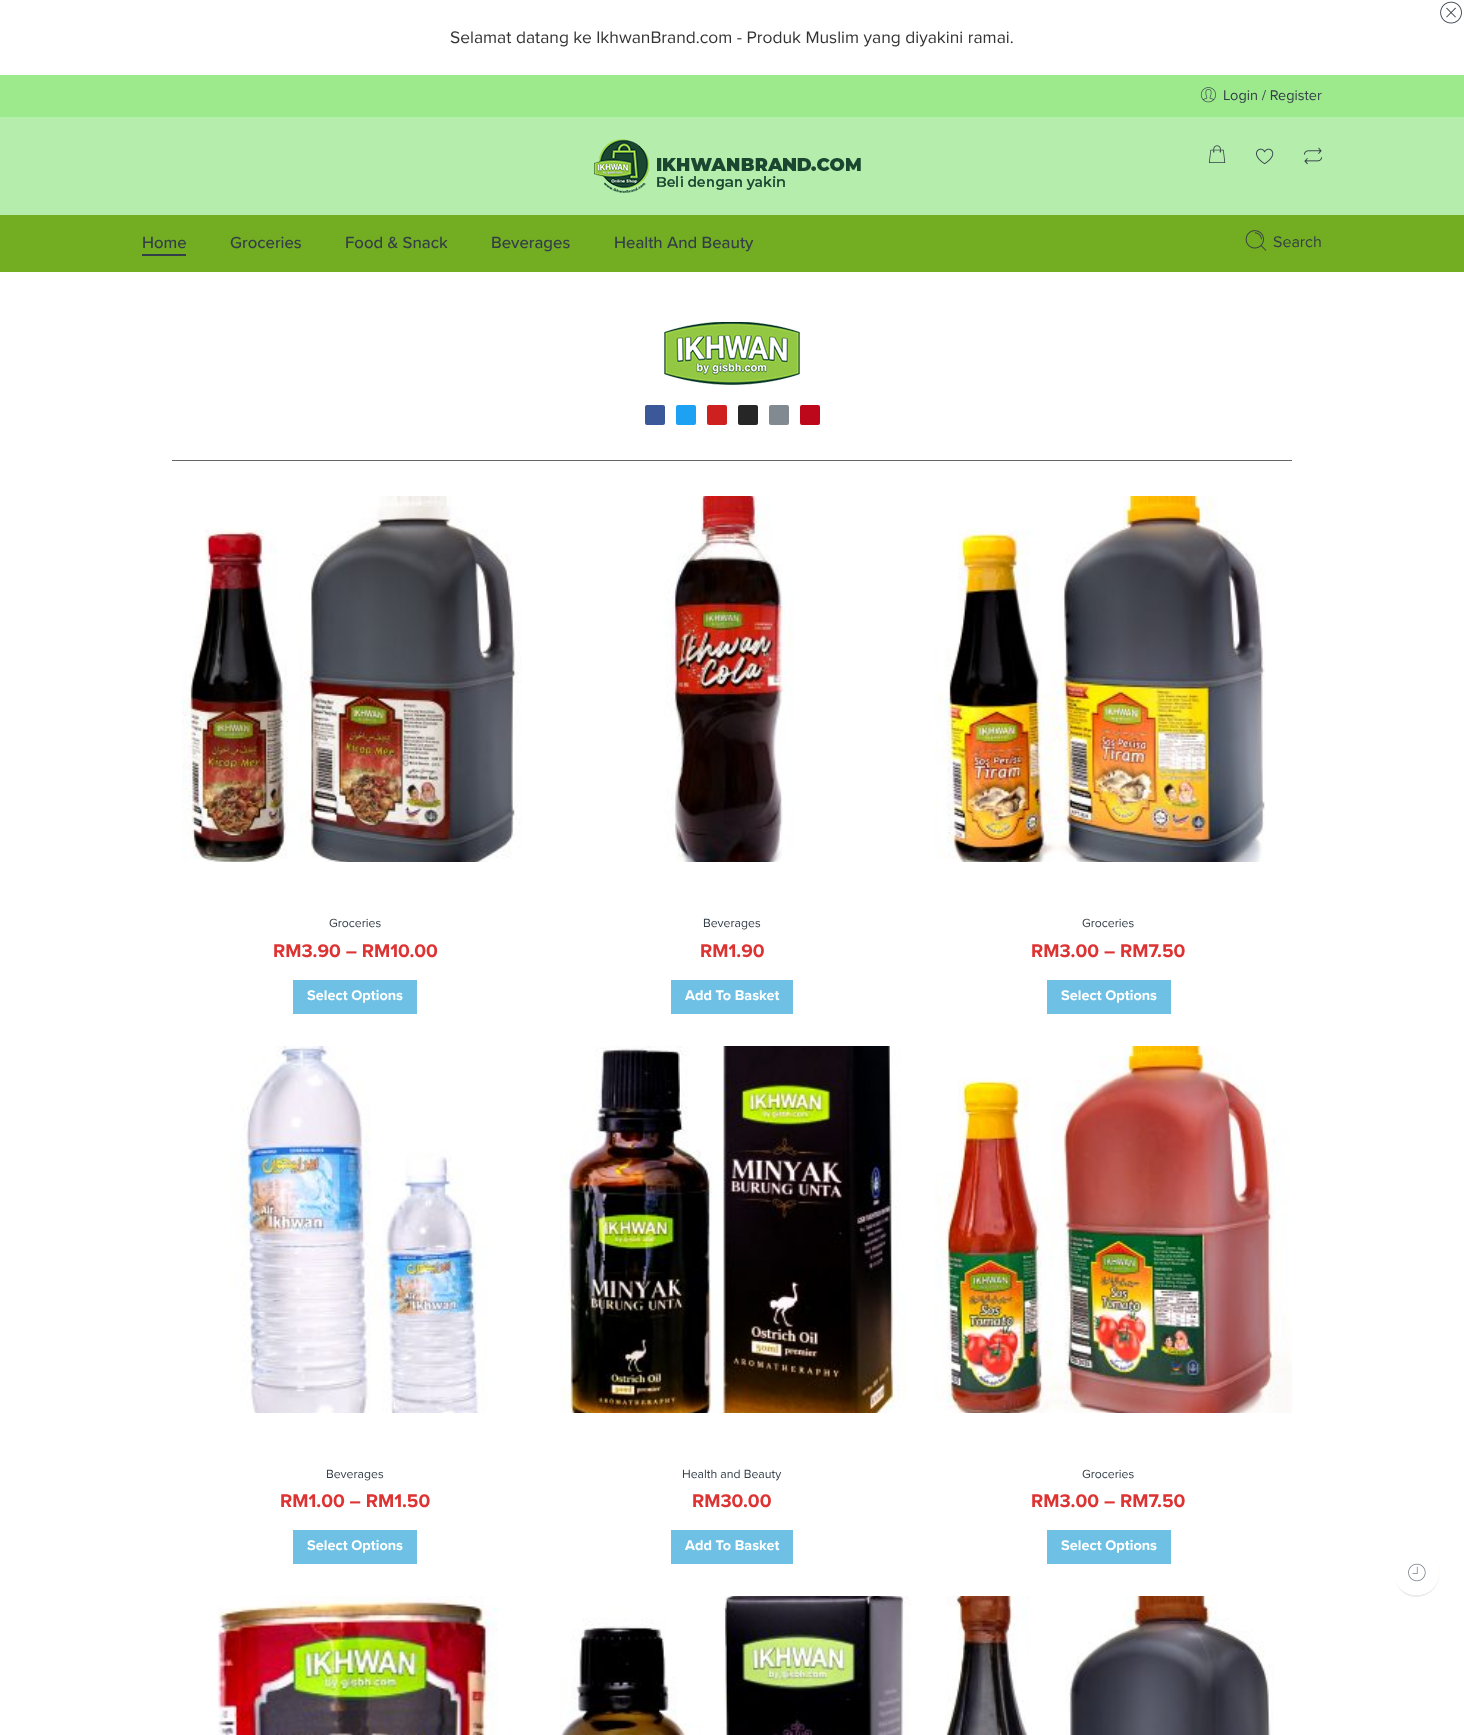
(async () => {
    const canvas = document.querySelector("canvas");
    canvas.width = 1464;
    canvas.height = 1735;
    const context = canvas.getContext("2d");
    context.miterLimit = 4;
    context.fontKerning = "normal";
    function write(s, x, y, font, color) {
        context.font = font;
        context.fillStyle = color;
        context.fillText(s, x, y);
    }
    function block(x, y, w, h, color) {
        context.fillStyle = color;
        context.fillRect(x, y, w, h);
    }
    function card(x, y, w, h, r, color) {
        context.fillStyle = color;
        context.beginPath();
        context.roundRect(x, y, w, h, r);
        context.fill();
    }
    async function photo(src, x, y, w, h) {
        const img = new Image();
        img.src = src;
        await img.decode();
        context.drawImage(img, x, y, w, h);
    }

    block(0, 0, 1464, 1735, "rgb(255, 255, 255)");
    await photo("media/1.png", 1440, 1, 22, 23);
    write("Selamat datang ke IkhwanBrand.com - Produk Muslim yang diyakini ramai.", 450, 43, "17.4px Proxima Nova", "rgb(51, 51, 51)");
    block(0, 75, 1464, 42, "rgb(156, 234, 140)");
    await photo("media/2.png", 1200, 87, 16, 16);
    write("Login / Register", 1223, 100, "14.5px Proxima Nova", "rgb(51, 62, 72)");
    block(0, 117, 1464, 98, "rgb(181, 237, 173)");
    await photo("media/3.png", 594, 139, 267, 54);
    await photo("media/4.png", 1208, 145, 18, 18);
    await photo("media/5.png", 1256, 148, 18, 17);
    await photo("media/6.png", 1304, 147, 18, 18);
    block(0, 215, 1464, 57, "rgb(115, 173, 33)");
    write("Home", 142, 248, "500 16.75px Proxima Nova", "rgb(51, 62, 72)");
    block(142, 254, 44, 2, "rgb(51, 62, 72)");
    write("Groceries", 230, 248, "500 16.75px Proxima Nova", "rgb(51, 62, 72)");
    write("Food & Snack", 345, 248, "500 16.75px Proxima Nova", "rgb(51, 62, 72)");
    write("Beverages", 491, 248, "500 16.75px Proxima Nova", "rgb(51, 62, 72)");
    write("Health And Beauty", 614, 248, "500 16.75px Proxima Nova", "rgb(51, 62, 72)");
    await photo("media/7.png", 1245, 230, 22, 21);
    write("Search", 1273, 247, "16px Proxima Nova", "rgb(51, 62, 72)");
    await photo("media/8.png", 664, 322, 136, 63);
    card(645, 405, 20, 20, 2, "rgb(59, 89, 152)");
    card(676, 405, 20, 20, 2, "rgb(29, 161, 242)");
    card(707, 405, 20, 20, 2, "rgb(205, 32, 31)");
    card(738, 405, 20, 20, 2, "rgb(38, 38, 38)");
    card(769, 405, 20, 20, 2, "rgb(129, 138, 145)");
    card(800, 405, 20, 20, 2, "rgb(189, 8, 28)");
    block(172, 460, 1120, 1, "rgb(102, 102, 102)");
    await photo("media/9.png", 181, 496, 341, 366);
    write("Groceries", 329, 927, "12.25px Proxima Nova", "rgb(51, 62, 72)");
    write("RM3.90 – RM10.00", 273, 957, "bold 19px Proxima Nova", "rgb(221, 51, 51)");
    block(293, 980, 124, 34, "rgb(110, 193, 228)");
    write("Select Options", 307, 1000, "bold 14.5px Proxima Nova", "rgb(255, 255, 255)");
    await photo("media/10.png", 664, 496, 130, 366);
    write("Beverages", 703, 927, "12.25px Proxima Nova", "rgb(51, 62, 72)");
    write("RM1.90", 700, 957, "bold 19px Proxima Nova", "rgb(221, 51, 51)");
    block(671, 980, 122, 34, "rgb(110, 193, 228)");
    write("Add To Basket", 685, 1000, "bold 14.5px Proxima Nova", "rgb(255, 255, 255)");
    await photo("media/11.png", 935, 496, 330, 366);
    write("Groceries", 1082, 927, "12.25px Proxima Nova", "rgb(51, 62, 72)");
    write("RM3.00 – RM7.50", 1031, 957, "bold 19px Proxima Nova", "rgb(221, 51, 51)");
    block(1047, 980, 124, 34, "rgb(110, 193, 228)");
    write("Select Options", 1061, 1000, "bold 14.5px Proxima Nova", "rgb(255, 255, 255)");
    await photo("media/12.png", 229, 1046, 258, 367);
    write("Beverages", 326, 1478, "12.25px Proxima Nova", "rgb(51, 62, 72)");
    write("RM1.00 – RM1.50", 280, 1507, "bold 19px Proxima Nova", "rgb(221, 51, 51)");
    block(293, 1530, 124, 34, "rgb(110, 193, 228)");
    write("Select Options", 307, 1550, "bold 14.5px Proxima Nova", "rgb(255, 255, 255)");
    await photo("media/13.png", 560, 1046, 347, 367);
    write("Health and Beauty", 682, 1478, "12.25px Proxima Nova", "rgb(51, 62, 72)");
    write("RM30.00", 692, 1507, "bold 19px Proxima Nova", "rgb(221, 51, 51)");
    block(671, 1530, 122, 34, "rgb(110, 193, 228)");
    write("Add To Basket", 685, 1550, "bold 14.5px Proxima Nova", "rgb(255, 255, 255)");
    await photo("media/14.png", 935, 1046, 357, 367);
    write("Groceries", 1082, 1478, "12.25px Proxima Nova", "rgb(51, 62, 72)");
    write("RM3.00 – RM7.50", 1031, 1507, "bold 19px Proxima Nova", "rgb(221, 51, 51)");
    block(1047, 1530, 124, 34, "rgb(110, 193, 228)");
    write("Select Options", 1061, 1550, "bold 14.5px Proxima Nova", "rgb(255, 255, 255)");
    await photo("media/15.png", 217, 1596, 281, 139);
    await photo("media/16.png", 560, 1596, 351, 139);
    await photo("media/17.png", 945, 1596, 329, 139);
    context.beginPath();
    context.arc(1417, 1573, 22.75, 0, Math.PI * 2);
    context.strokeStyle = "rgb(248, 248, 248)";
    context.lineWidth = 0.5;
    context.stroke();
    context.fillStyle = "rgba(0, 0, 0, 0.07)";
    context.beginPath();
    context.moveTo(1394, 1574);
    context.bezierCurveTo(1394, 1578, 1395, 1583, 1398, 1587);
    context.bezierCurveTo(1410, 1606, 1440, 1596, 1439, 1574);
    context.bezierCurveTo(1438, 1602, 1395, 1602, 1394, 1574);
    context.closePath();
    context.fill();
    context.fillStyle = "rgb(255, 255, 255)";
    context.beginPath();
    context.arc(1416.5, 1572.5, 22.5, 0, Math.PI * 2);
    context.fill();
    await photo("media/18.png", 1408, 1563, 18, 19);
})();
